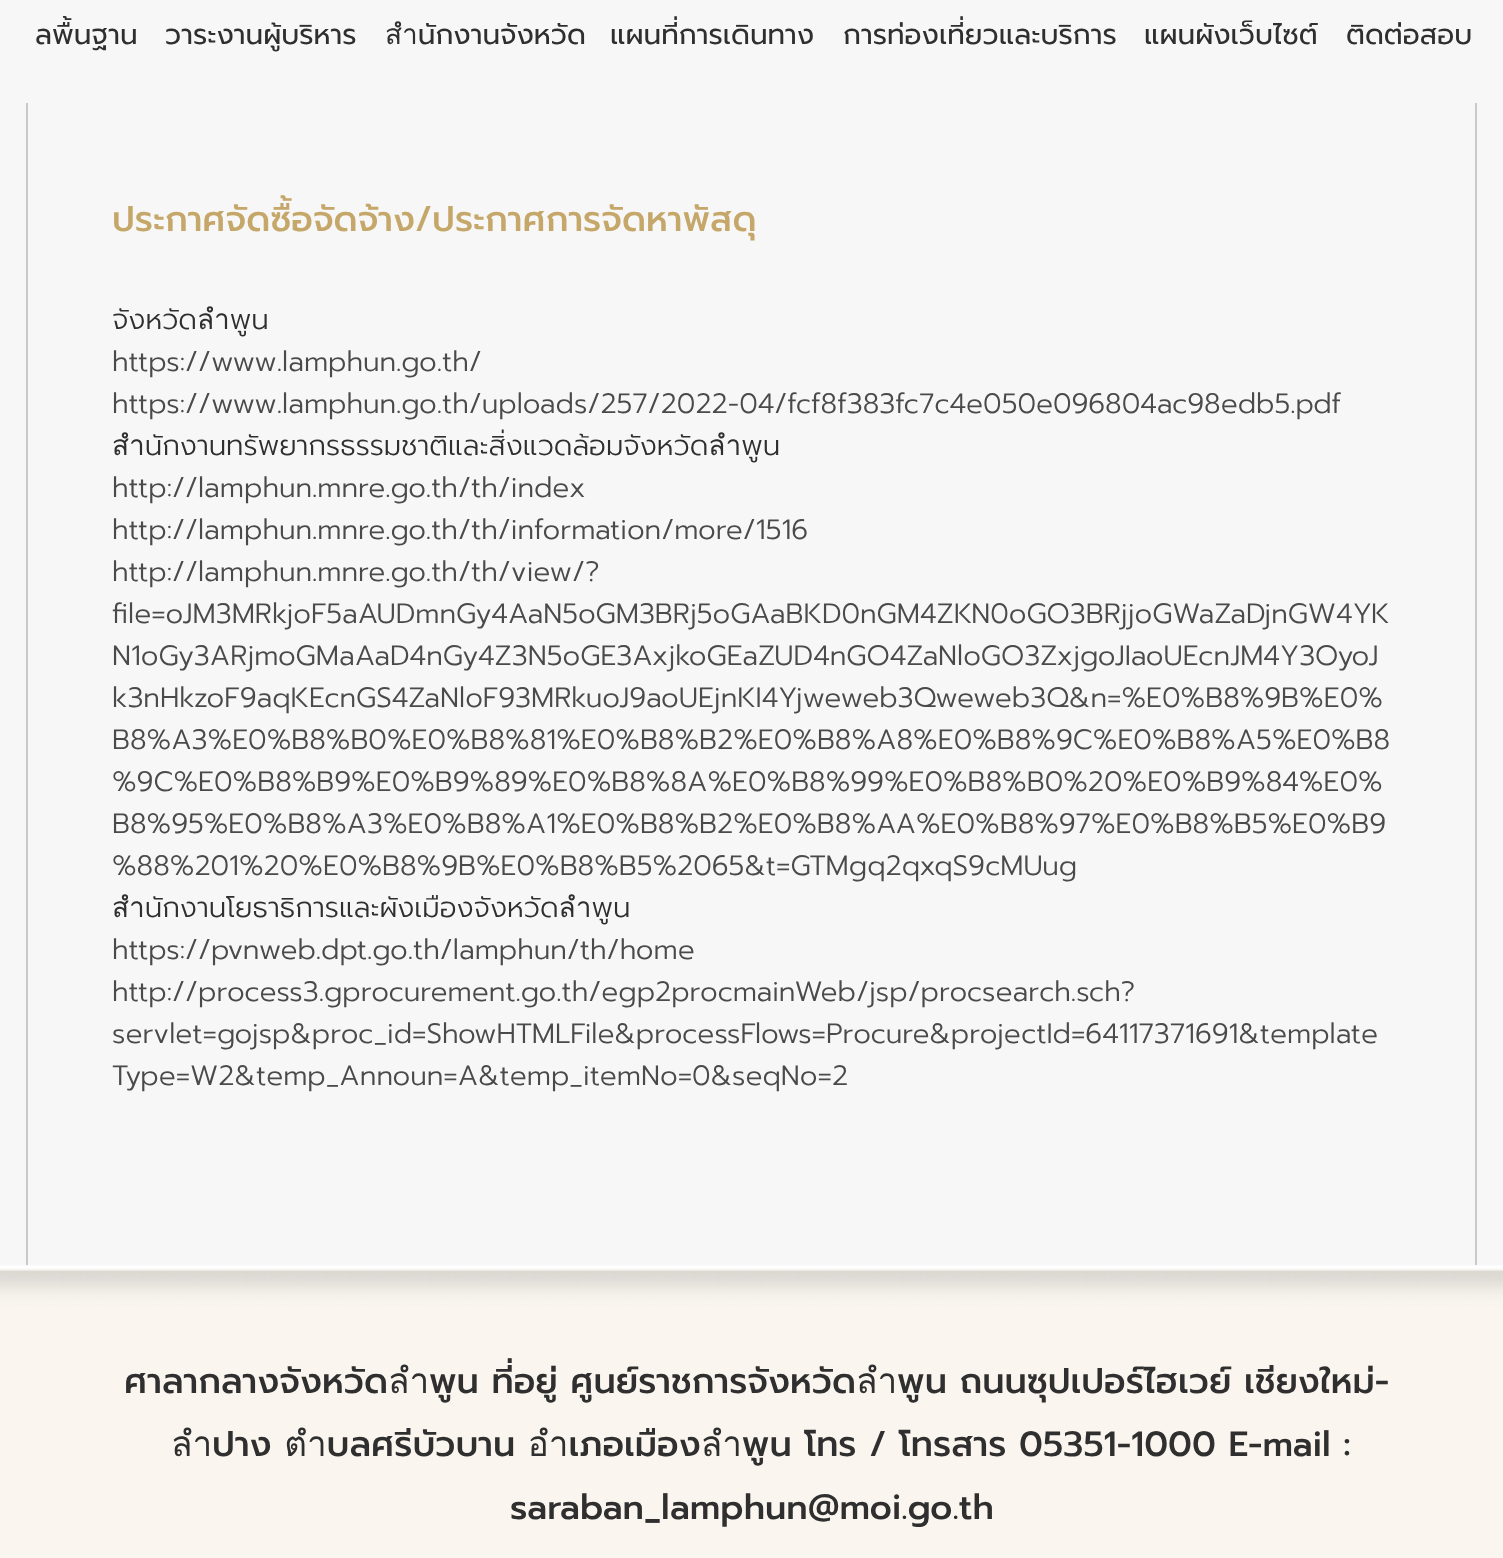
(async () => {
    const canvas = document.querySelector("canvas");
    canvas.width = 1503;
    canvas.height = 1558;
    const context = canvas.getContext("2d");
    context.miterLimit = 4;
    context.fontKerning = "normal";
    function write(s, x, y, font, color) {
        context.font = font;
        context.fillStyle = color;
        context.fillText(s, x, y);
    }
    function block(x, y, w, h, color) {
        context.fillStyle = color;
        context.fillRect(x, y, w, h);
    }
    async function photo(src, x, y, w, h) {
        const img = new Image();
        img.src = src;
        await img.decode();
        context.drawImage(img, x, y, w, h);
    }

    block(0, 0, 1503, 1558, "rgb(247, 247, 247)");
    write("ลพื้นฐาน", 35, 44, "28px Prompt", "rgb(47, 47, 47)");
    write("วาระงานผู้บริหาร", 165, 44, "28px Prompt", "rgb(47, 47, 47)");
    write("สำนักงานจังหวัด", 385, 44, "28px Prompt", "rgb(47, 47, 47)");
    write("แผนที่การเดินทาง", 610, 44, "28px Prompt", "rgb(47, 47, 47)");
    write("การท่องเที่ยวและบริการ", 843, 44, "28px Prompt", "rgb(47, 47, 47)");
    write("แผนผังเว็บไซต์", 1144, 44, "28px Prompt", "rgb(47, 47, 47)");
    write("ติดต่อสอบ", 1346, 44, "28px Prompt", "rgb(47, 47, 47)");
    block(1475, 103, 2, 1162, "rgb(201, 201, 201)");
    block(26, 103, 2, 1162, "rgb(201, 201, 201)");
    write("ประกาศจัดซื้อจัดจ้าง/ประกาศการจัดหาพัสดุ", 112, 231, "500 35px Prompt", "rgb(197, 167, 106)");
    write("จังหวัดลำพูน", 112, 329, "300 28px Prompt", "rgb(47, 47, 47)");
    write("https://www.lamphun.go.th/", 112, 371, "300 28px Prompt", "rgb(74, 74, 74)");
    write("https://www.lamphun.go.th/uploads/257/2022-04/fcf8f383fc7c4e050e096804ac98edb5.pdf", 112, 413, "300 28px Prompt", "rgb(74, 74, 74)");
    write("สำนักงานทรัพยากรธรรมชาติและสิ่งแวดล้อมจังหวัดลำพูน", 112, 455, "300 28px Prompt", "rgb(47, 47, 47)");
    write("http://lamphun.mnre.go.th/th/index", 112, 497, "300 28px Prompt", "rgb(74, 74, 74)");
    write("http://lamphun.mnre.go.th/th/information/more/1516", 112, 539, "300 28px Prompt", "rgb(74, 74, 74)");
    write("http://lamphun.mnre.go.th/th/view/?", 112, 581, "300 28px Prompt", "rgb(74, 74, 74)");
    write("file=oJM3MRkjoF5aAUDmnGy4AaN5oGM3BRj5oGAaBKD0nGM4ZKN0oGO3BRjjoGWaZaDjnGW4YK", 112, 623, "300 28px Prompt", "rgb(74, 74, 74)");
    write("N1oGy3ARjmoGMaAaD4nGy4Z3N5oGE3AxjkoGEaZUD4nGO4ZaNloGO3ZxjgoJIaoUEcnJM4Y3OyoJ", 112, 665, "300 28px Prompt", "rgb(74, 74, 74)");
    write("k3nHkzoF9aqKEcnGS4ZaNloF93MRkuoJ9aoUEjnKI4Yjweweb3Qweweb3Q&n=%E0%B8%9B%E0%", 112, 707, "300 28px Prompt", "rgb(74, 74, 74)");
    write("B8%A3%E0%B8%B0%E0%B8%81%E0%B8%B2%E0%B8%A8%E0%B8%9C%E0%B8%A5%E0%B8", 112, 749, "300 28px Prompt", "rgb(74, 74, 74)");
    write("%9C%E0%B8%B9%E0%B9%89%E0%B8%8A%E0%B8%99%E0%B8%B0%20%E0%B9%84%E0%", 112, 791, "300 28px Prompt", "rgb(74, 74, 74)");
    write("B8%95%E0%B8%A3%E0%B8%A1%E0%B8%B2%E0%B8%AA%E0%B8%97%E0%B8%B5%E0%B9", 112, 833, "300 28px Prompt", "rgb(74, 74, 74)");
    write("%88%201%20%E0%B8%9B%E0%B8%B5%2065&t=GTMgq2qxqS9cMUug", 112, 875, "300 28px Prompt", "rgb(74, 74, 74)");
    write("สำนักงานโยธาธิการและผังเมืองจังหวัดลำพูน", 112, 917, "300 28px Prompt", "rgb(47, 47, 47)");
    write("https://pvnweb.dpt.go.th/lamphun/th/home", 112, 959, "300 28px Prompt", "rgb(74, 74, 74)");
    write("http://process3.gprocurement.go.th/egp2procmainWeb/jsp/procsearch.sch?", 112, 1001, "300 28px Prompt", "rgb(74, 74, 74)");
    write("servlet=gojsp&proc_id=ShowHTMLFile&processFlows=Procure&projectId=64117371691&template", 112, 1043, "300 28px Prompt", "rgb(74, 74, 74)");
    write("Type=W2&temp_Announ=A&temp_itemNo=0&seqNo=2", 112, 1085, "300 28px Prompt", "rgb(74, 74, 74)");
    await photo("media/1.png", 0, 1265, 1503, 293);
    write("ศาลากลางจังหวัดลำพูน ที่อยู่ ศูนย์ราชการจังหวัดลำพูน ถนนซุปเปอร์ไฮเวย์ เชียงใหม่-", 124, 1393, "500 35px Prompt", "rgb(47, 47, 47)");
    write("ลำปาง ตำบลศรีบัวบาน อำเภอเมืองลำพูน โทร / โทรสาร 05351-1000 E-mail :", 171, 1456, "500 35px Prompt", "rgb(47, 47, 47)");
    write("saraban_lamphun@moi.go.th", 510, 1519, "500 35px Prompt", "rgb(47, 47, 47)");
})();
